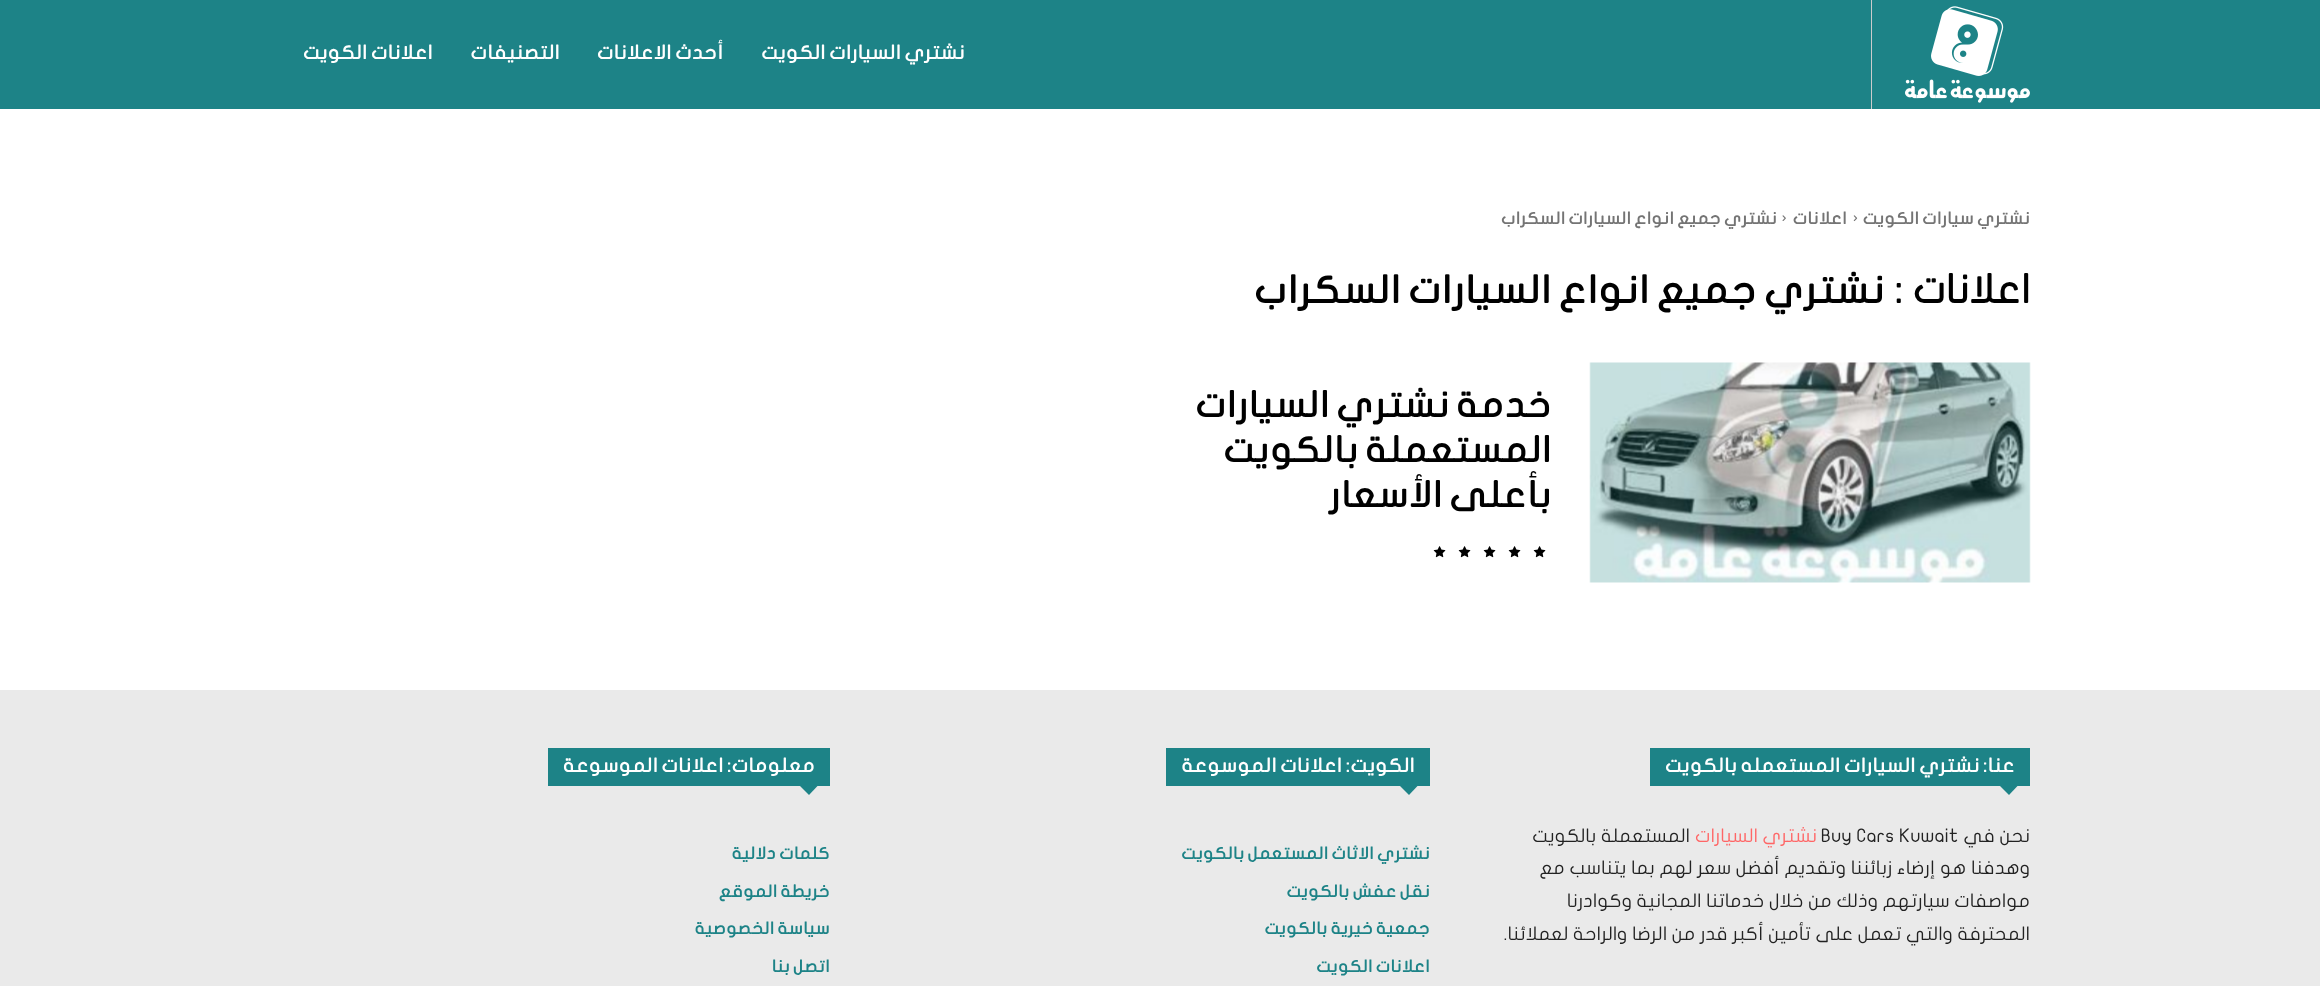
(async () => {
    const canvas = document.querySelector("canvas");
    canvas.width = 2320;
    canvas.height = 986;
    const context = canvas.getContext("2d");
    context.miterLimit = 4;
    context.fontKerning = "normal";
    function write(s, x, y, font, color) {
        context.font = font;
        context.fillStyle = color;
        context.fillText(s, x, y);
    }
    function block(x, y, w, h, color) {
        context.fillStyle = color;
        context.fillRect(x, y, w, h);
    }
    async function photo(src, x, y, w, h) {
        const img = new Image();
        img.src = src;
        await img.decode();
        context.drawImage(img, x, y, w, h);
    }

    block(0, 0, 2320, 986, "rgb(255, 255, 255)");
    block(0, 0, 2320, 109, "rgb(29, 131, 135)");
    block(1871, 0, 1, 109, "rgb(204, 204, 204)");
    await photo("media/1.png", 1905, 6, 125, 97);
    context.direction = "rtl";
    write("نشتري السيارات الكويت", 965, 59, "bold 20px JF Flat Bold", "rgb(255, 255, 255)");
    write("أحدث الاعلانات", 724, 59, "bold 20px JF Flat Bold", "rgb(255, 255, 255)");
    write("التصنيفات", 560, 59, "bold 20px JF Flat Bold", "rgb(255, 255, 255)");
    write("اعلانات الكويت", 433, 59, "bold 20px JF Flat Bold", "rgb(255, 255, 255)");
    write("نشتري سيارات الكويت", 2030, 224, "bold 17.5px JF Flat Bold", "rgb(116, 116, 116)");
    await photo("media/2.png", 1853, 215, 5, 7);
    write("اعلانات", 1847, 224, "bold 17.5px JF Flat Bold", "rgb(116, 116, 116)");
    await photo("media/3.png", 1782, 215, 4, 6);
    write("نشتري جميع انواع السيارات السكراب", 1777, 224, "bold 17.5px JF Flat Bold", "rgb(116, 116, 116)");
    write("اعلانات :", 2030, 303, "bold 40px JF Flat", "rgb(0, 0, 0)");
    write("نشتري جميع انواع السيارات السكراب", 1885, 303, "bold 40px JF Flat Bold", "rgb(0, 0, 0)");
    await photo("media/4.png", 1589, 362, 442, 221);
    write("خدمة نشتري السيارات", 1552, 417, "bold 37.5px JF Flat Bold", "rgb(0, 0, 0)");
    write("المستعملة بالكويت", 1552, 462, "bold 37.5px JF Flat Bold", "rgb(0, 0, 0)");
    write("بأعلى الأسعار", 1552, 507, "bold 37.5px JF Flat Bold", "rgb(0, 0, 0)");
    await photo("media/5.png", 1533, 546, 13, 12);
    await photo("media/5.png", 1508, 546, 13, 12);
    await photo("media/5.png", 1483, 546, 13, 12);
    await photo("media/5.png", 1458, 546, 13, 12);
    await photo("media/5.png", 1433, 546, 13, 12);
    block(0, 690, 2320, 296, "rgb(234, 234, 234)");
    block(1650, 748, 380, 38, "rgb(29, 131, 135)");
    write("عنا: نشتري السيارات المستعمله بالكويت", 2015, 772, "bold 20px JF Flat Bold", "rgb(255, 255, 255)");
    context.fillStyle = "rgb(29, 131, 135)";
    context.beginPath();
    context.moveTo(2000, 786);
    context.lineTo(2017.5, 786);
    context.lineTo(2009, 795);
    context.closePath();
    context.fill();
    write("نحن في", 2030, 842, "18.75px JF Flat", "rgb(34, 34, 34)");
    context.direction = "ltr";
    write("Buy Cars Kuwait", 1821, 842, "18.75px JF Flat", "rgb(34, 34, 34)");
    context.direction = "rtl";
    write("نشتري السيارات", 1817, 842, "18.75px JF Flat", "rgb(255, 102, 102)");
    write("المستعملة بالكويت", 1690, 842, "18.75px JF Flat", "rgb(34, 34, 34)");
    write("وهدفنا هو إرضاء زبائننا وتقديم أفضل سعر لهم بما يتناسب مع", 2030, 874, "18.75px JF Flat", "rgb(34, 34, 34)");
    write("مواصفات سيارتهم وذلك من خلال خدماتنا المجانية وكوادرنا", 2030, 907, "18.75px JF Flat", "rgb(34, 34, 34)");
    write("المحترفة والتي تعمل على تأمين أكبر قدر من الرضا والراحة لعملائنا.", 2030, 940, "18.75px JF Flat", "rgb(34, 34, 34)");
    block(1166, 748, 264, 38, "rgb(29, 131, 135)");
    write("الكويت: اعلانات الموسوعة", 1415, 772, "bold 20px JF Flat Bold", "rgb(255, 255, 255)");
    context.fillStyle = "rgb(29, 131, 135)";
    context.beginPath();
    context.moveTo(1400, 786);
    context.lineTo(1417.5, 786);
    context.lineTo(1409, 795);
    context.closePath();
    context.fill();
    write("نشتري الاثاث المستعمل بالكويت", 1430, 859, "bold 17.5px JF Flat Bold", "rgb(29, 131, 135)");
    write("نقل عفش بالكويت", 1430, 897, "bold 17.5px JF Flat Bold", "rgb(29, 131, 135)");
    write("جمعية خيرية بالكويت", 1430, 934, "bold 17.5px JF Flat Bold", "rgb(29, 131, 135)");
    write("اعلانات الكويت", 1430, 972, "bold 17.5px JF Flat Bold", "rgb(29, 131, 135)");
    block(548, 748, 282, 38, "rgb(29, 131, 135)");
    write("معلومات: اعلانات الموسوعة", 815, 772, "bold 20px JF Flat Bold", "rgb(255, 255, 255)");
    context.fillStyle = "rgb(29, 131, 135)";
    context.beginPath();
    context.moveTo(800, 786);
    context.lineTo(817.5, 786);
    context.lineTo(809, 795);
    context.closePath();
    context.fill();
    write("كلمات دلالية", 830, 859, "bold 17.5px JF Flat Bold", "rgb(29, 131, 135)");
    write("خريطة الموقع", 830, 897, "bold 17.5px JF Flat Bold", "rgb(29, 131, 135)");
    write("سياسة الخصوصية", 830, 934, "bold 17.5px JF Flat Bold", "rgb(29, 131, 135)");
    write("اتصل بنا", 830, 972, "bold 17.5px JF Flat Bold", "rgb(29, 131, 135)");
})();
